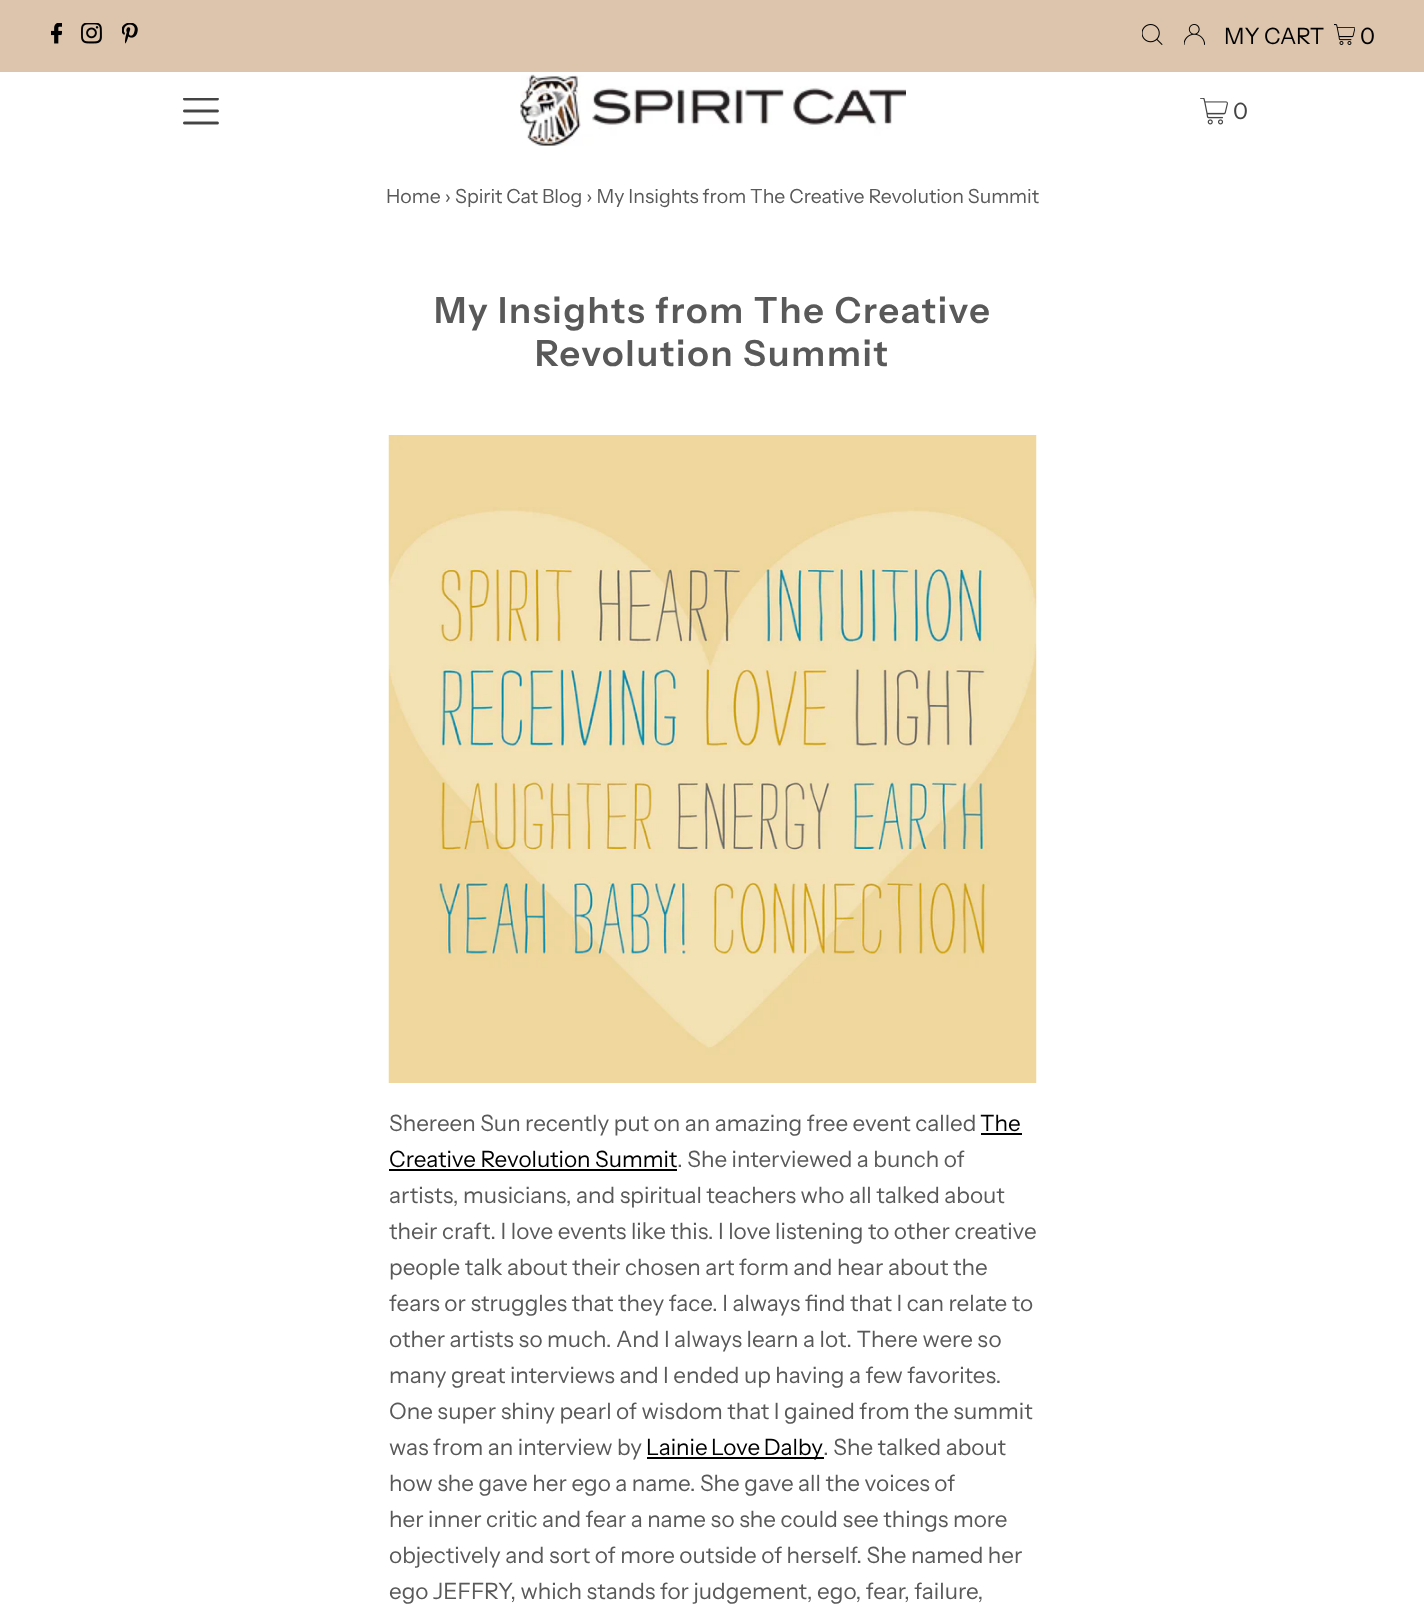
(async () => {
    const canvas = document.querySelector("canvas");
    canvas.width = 1424;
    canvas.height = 1624;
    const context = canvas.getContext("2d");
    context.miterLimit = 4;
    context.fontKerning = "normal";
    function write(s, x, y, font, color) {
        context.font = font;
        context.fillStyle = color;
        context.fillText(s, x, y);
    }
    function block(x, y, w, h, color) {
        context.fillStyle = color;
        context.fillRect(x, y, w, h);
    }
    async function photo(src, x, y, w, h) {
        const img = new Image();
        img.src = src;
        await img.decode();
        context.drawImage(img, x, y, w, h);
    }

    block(0, 0, 1424, 1624, "rgb(255, 255, 255)");
    block(0, 0, 1424, 72, "rgb(220, 197, 172)");
    await photo("media/1.png", 51, 23, 11, 21);
    await photo("media/2.png", 81, 23, 21, 21);
    await photo("media/3.png", 122, 23, 16, 21);
    await photo("media/4.png", 1142, 24, 21, 21);
    await photo("media/5.png", 1184, 24, 21, 21);
    write("MY CART", 1224, 44, "22.5px Instrument Sans", "rgb(0, 0, 0)");
    await photo("media/6.png", 1334, 24, 21, 21);
    write("0", 1360, 44, "22.5px Instrument Sans", "rgb(0, 0, 0)");
    await photo("media/7.png", 183, 98, 36, 27);
    await photo("media/8.png", 520, 74, 386, 72);
    await photo("media/9.png", 1200, 98, 28, 27);
    write("0", 1233, 119, "22.5px Instrument Sans", "rgb(68, 68, 68)");
    write("Home › Spirit Cat Blog › My Insights from The Creative Revolution Summit", 386, 203, "19.5px Instrument Sans", "rgb(89, 89, 89)");
    context.letterSpacing = "1.8px";
    write("My Insights from The Creative", 434, 323, "600 36px Instrument Sans", "rgb(89, 89, 89)");
    write("Revolution Summit", 535, 366, "600 36px Instrument Sans", "rgb(89, 89, 89)");
    await photo("media/10.png", 388, 435, 649, 648);
    context.letterSpacing = "0px";
    write("Shereen Sun recently put on an amazing free event called", 389, 1131, "22.5px Instrument Sans", "rgb(89, 89, 89)");
    write("The", 980, 1131, "22.5px Instrument Sans", "rgb(0, 0, 0)");
    block(981, 1133, 41, 2, "rgb(0, 0, 0)");
    write("Creative Revolution Summit", 389, 1167, "22.5px Instrument Sans", "rgb(0, 0, 0)");
    block(389, 1169, 288, 2, "rgb(0, 0, 0)");
    write(". She interviewed a bunch of", 677, 1167, "22.5px Instrument Sans", "rgb(89, 89, 89)");
    write("artists, musicians, and spiritual teachers who all talked about", 389, 1203, "22.5px Instrument Sans", "rgb(89, 89, 89)");
    write("their craft. I love events like this. I love listening to other creative", 389, 1239, "22.5px Instrument Sans", "rgb(89, 89, 89)");
    write("people talk about their chosen art form and hear about the", 389, 1275, "22.5px Instrument Sans", "rgb(89, 89, 89)");
    write("fears or struggles that they face. I always find that I can relate to", 389, 1311, "22.5px Instrument Sans", "rgb(89, 89, 89)");
    write("other artists so much. And I always learn a lot. There were so", 389, 1347, "22.5px Instrument Sans", "rgb(89, 89, 89)");
    write("many great interviews and I ended up having a few favorites.", 389, 1383, "22.5px Instrument Sans", "rgb(89, 89, 89)");
    write("One super shiny pearl of wisdom that I gained from the summit", 389, 1419, "22.5px Instrument Sans", "rgb(89, 89, 89)");
    write("was from an interview by", 389, 1455, "22.5px Instrument Sans", "rgb(89, 89, 89)");
    block(647, 1457, 177, 2, "rgb(0, 0, 0)");
    context.wordSpacing = "-1px";
    write("Lainie Love Dalby", 646, 1455, "22.5px Instrument Sans", "rgb(0, 0, 0)");
    context.wordSpacing = "0px";
    write(". She talked about", 823, 1455, "22.5px Instrument Sans", "rgb(89, 89, 89)");
    write("how she gave her ego a name. She gave all the voices of", 389, 1491, "22.5px Instrument Sans", "rgb(89, 89, 89)");
    write("her inner critic and fear a name so she could see things more", 389, 1527, "22.5px Instrument Sans", "rgb(89, 89, 89)");
    write("objectively and sort of more outside of herself. She named her", 389, 1563, "22.5px Instrument Sans", "rgb(89, 89, 89)");
    write("ego JEFFRY, which stands for judgement, ego, fear, failure,", 389, 1599, "22.5px Instrument Sans", "rgb(89, 89, 89)");
})();
